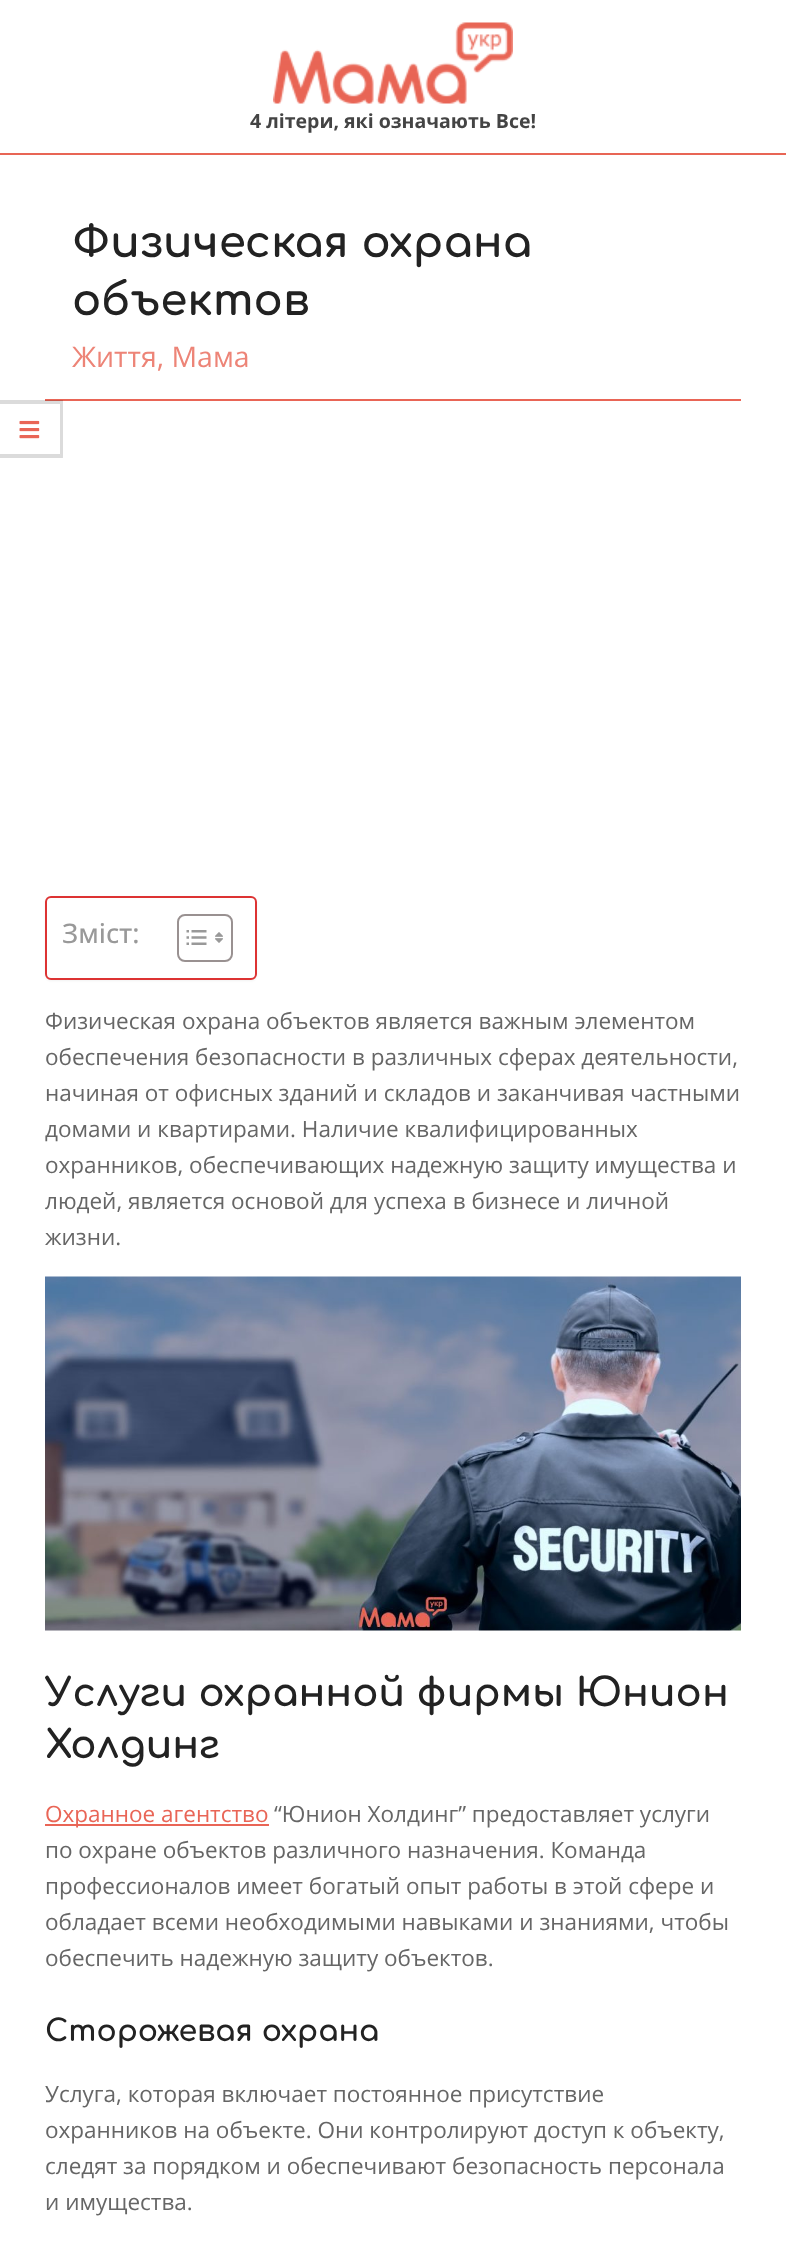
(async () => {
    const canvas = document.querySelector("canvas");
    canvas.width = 786;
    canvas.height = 2267;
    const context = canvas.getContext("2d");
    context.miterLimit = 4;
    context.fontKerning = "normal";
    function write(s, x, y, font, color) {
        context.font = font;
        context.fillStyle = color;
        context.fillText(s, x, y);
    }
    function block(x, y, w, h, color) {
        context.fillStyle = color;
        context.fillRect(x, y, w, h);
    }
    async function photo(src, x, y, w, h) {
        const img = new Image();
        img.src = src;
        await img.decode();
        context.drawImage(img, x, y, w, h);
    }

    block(0, 0, 786, 2267, "rgb(255, 255, 255)");
    block(0, 153, 786, 2, "rgb(232, 101, 85)");
    await photo("media/1.png", 273, 22, 240, 82);
    write("4 літери, які означають Все!", 250, 128, "bold 19.5px Open Sans", "rgb(68, 68, 68)");
    block(45, 399, 696, 2, "rgb(233, 101, 86)");
    context.fillStyle = "rgba(0, 0, 0, 0.14)";
    context.beginPath();
    context.moveTo(0, 400);
    context.lineTo(63, 400);
    context.lineTo(60, 404);
    context.lineTo(0, 404);
    context.closePath();
    context.fill();
    context.beginPath();
    context.moveTo(63, 400);
    context.lineTo(63, 458);
    context.lineTo(60, 454);
    context.lineTo(60, 404);
    context.closePath();
    context.fill();
    context.beginPath();
    context.moveTo(63, 458);
    context.lineTo(0, 458);
    context.lineTo(0, 454);
    context.lineTo(60, 454);
    context.closePath();
    context.fill();
    await photo("media/2.png", 19, 420, 21, 19);
    write("Физическая охрана", 72, 257, "bold 43.5px Comfortaa", "rgb(34, 34, 34)");
    write("объектов", 72, 315, "bold 43.5px Comfortaa", "rgb(34, 34, 34)");
    write("Життя, Мама", 72, 367, "28.5px Open Sans", "rgb(237, 132, 119)");
    context.fillStyle = "rgba(0, 0, 0, 0.05)";
    context.filter = "blur(1px)";
    context.beginPath();
    context.roundRect(45, 897, 212, 84, 6);
    context.fill();
    context.filter = "none";
    context.fillStyle = "rgb(255, 255, 255)";
    context.beginPath();
    context.roundRect(46, 897, 210, 82, 5);
    context.fill();
    context.strokeStyle = "rgb(221, 51, 51)";
    context.lineWidth = 2;
    context.stroke();
    write("Зміст:", 62, 943, "500 27px Open Sans", "rgb(153, 153, 153)");
    context.beginPath();
    context.roundRect(178, 915, 54, 46, 7);
    context.strokeStyle = "rgb(153, 145, 145)";
    context.stroke();
    await photo("media/3.png", 186, 930, 21, 15);
    await photo("media/4.png", 215, 932, 8, 11);
    write("Физическая охрана объектов является важным элементом", 45, 1029, "22.5px Open Sans", "rgb(102, 102, 102)");
    write("обеспечения безопасности в различных сферах деятельности,", 45, 1065, "22.5px Open Sans", "rgb(102, 102, 102)");
    write("начиная от офисных зданий и складов и заканчивая частными", 45, 1101, "22.5px Open Sans", "rgb(102, 102, 102)");
    write("домами и квартирами. Наличие квалифицированных", 45, 1137, "22.5px Open Sans", "rgb(102, 102, 102)");
    write("охранников, обеспечивающих надежную защиту имущества и", 45, 1173, "22.5px Open Sans", "rgb(102, 102, 102)");
    write("людей, является основой для успеха в бизнесе и личной", 45, 1209, "22.5px Open Sans", "rgb(102, 102, 102)");
    write("жизни.", 45, 1245, "22.5px Open Sans", "rgb(102, 102, 102)");
    await photo("media/5.png", 45, 1276, 696, 355);
    write("Услуги охранной фирмы Юнион", 45, 1706, "bold 39px Comfortaa", "rgb(34, 34, 34)");
    write("Холдинг", 45, 1758, "bold 39px Comfortaa", "rgb(34, 34, 34)");
    block(45, 1824, 224, 2, "rgb(233, 101, 86)");
    write("Охранное агентство", 45, 1822, "22.5px Open Sans", "rgb(233, 101, 86)");
    write("“Юнион Холдинг” предоставляет услуги", 274, 1822, "22.5px Open Sans", "rgb(102, 102, 102)");
    write("по охране объектов различного назначения. Команда", 45, 1858, "22.5px Open Sans", "rgb(102, 102, 102)");
    write("профессионалов имеет богатый опыт работы в этой сфере и", 45, 1894, "22.5px Open Sans", "rgb(102, 102, 102)");
    write("обладает всеми необходимыми навыками и знаниями, чтобы", 45, 1930, "22.5px Open Sans", "rgb(102, 102, 102)");
    write("обеспечить надежную защиту объектов.", 45, 1966, "22.5px Open Sans", "rgb(102, 102, 102)");
    write("Сторожевая охрана", 45, 2041, "bold 30px Comfortaa", "rgb(34, 34, 34)");
    write("Услуга, которая включает постоянное присутствие", 45, 2102, "22.5px Open Sans", "rgb(102, 102, 102)");
    write("охранников на объекте. Они контролируют доступ к объекту,", 45, 2138, "22.5px Open Sans", "rgb(102, 102, 102)");
    write("следят за порядком и обеспечивают безопасность персонала", 45, 2174, "22.5px Open Sans", "rgb(102, 102, 102)");
    write("и имущества.", 45, 2210, "22.5px Open Sans", "rgb(102, 102, 102)");
})();
